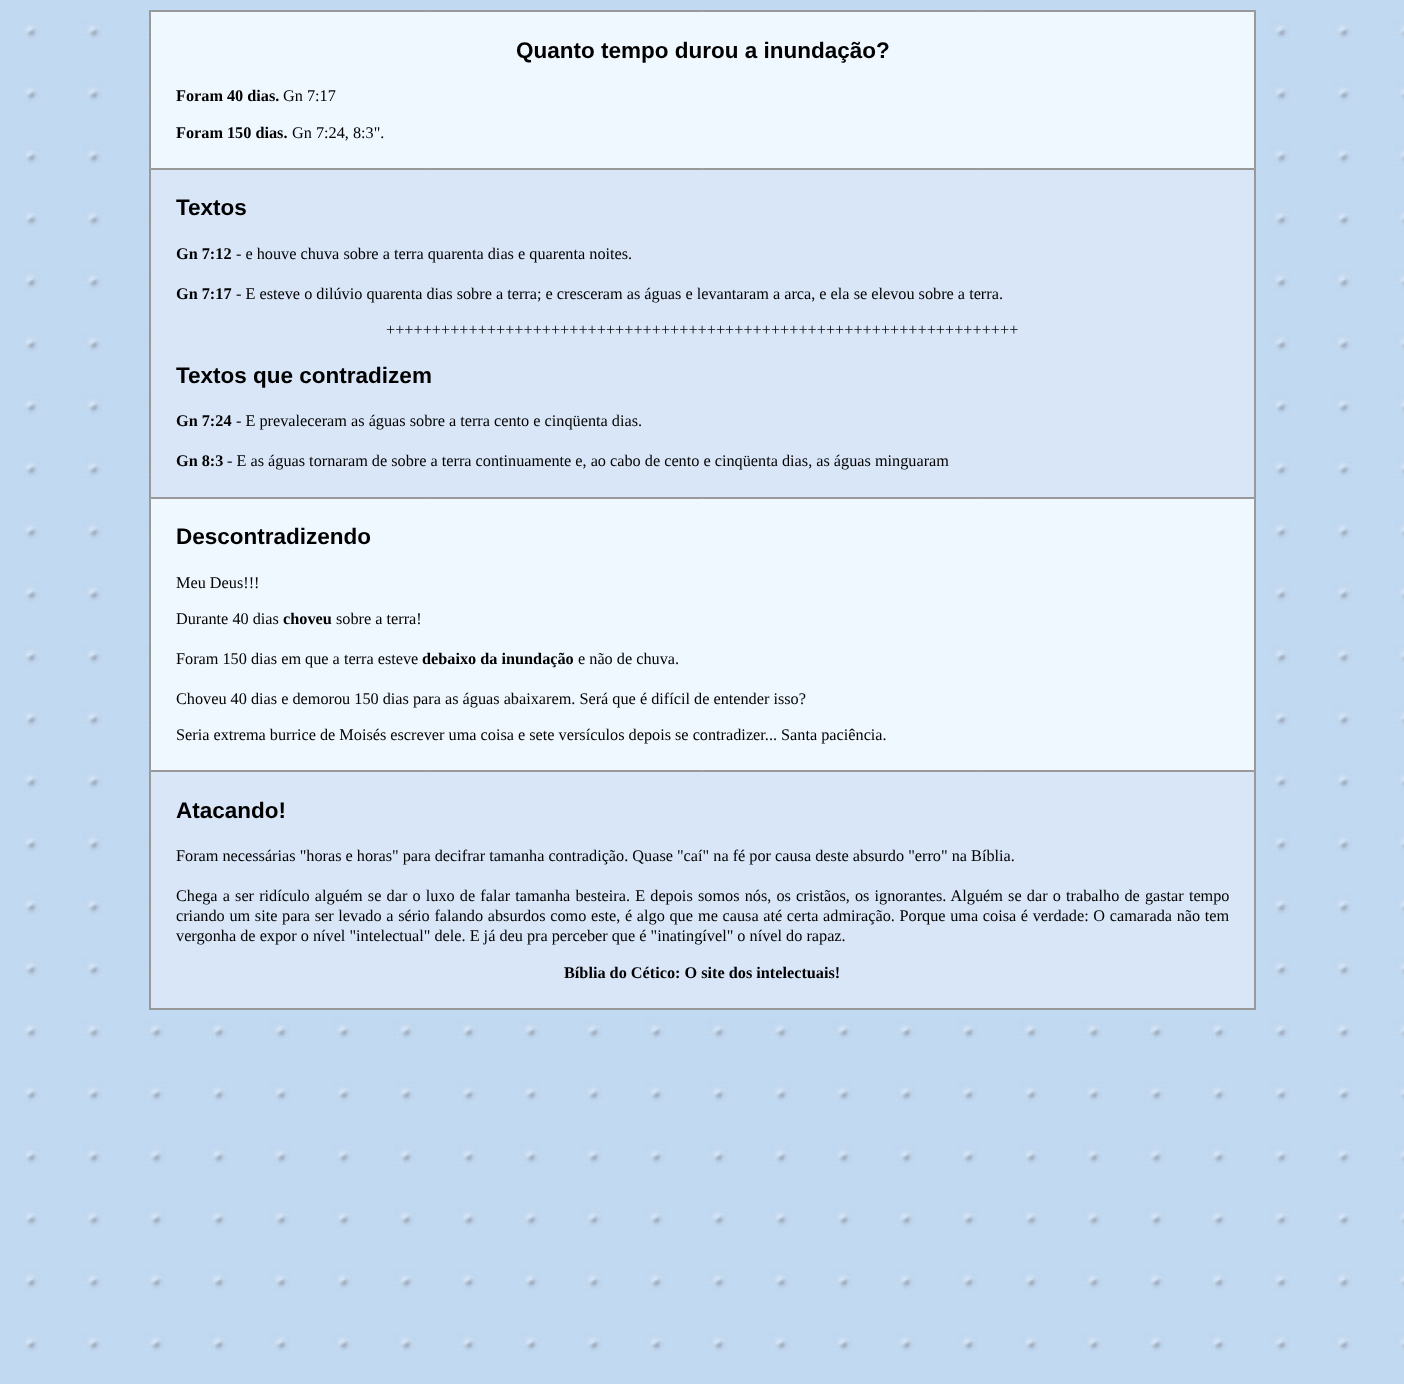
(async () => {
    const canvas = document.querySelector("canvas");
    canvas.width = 1404;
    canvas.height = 1384;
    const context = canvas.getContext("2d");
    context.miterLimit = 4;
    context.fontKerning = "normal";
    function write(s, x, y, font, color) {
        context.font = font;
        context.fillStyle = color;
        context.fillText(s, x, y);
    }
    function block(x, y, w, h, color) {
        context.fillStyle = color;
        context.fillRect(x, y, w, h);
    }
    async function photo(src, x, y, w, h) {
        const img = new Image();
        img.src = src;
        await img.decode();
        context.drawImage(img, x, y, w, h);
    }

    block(0, 0, 1404, 1384, "rgb(193, 217, 241)");
    await photo("media/1.png", 23, 20, 1381, 1332);
    block(151, 170, 1103, 838, "rgb(217, 230, 247)");
    context.strokeStyle = "rgb(153, 153, 153)";
    context.strokeRect(149.5, 10.5, 1106, 999);
    context.fillStyle = "rgb(239, 247, 255)";
    context.beginPath();
    context.rect(150.5, 11.5, 1104, 157);
    context.fill();
    context.stroke();
    write("Quanto tempo durou a inundação?", 516, 58, "bold 22.5px Liberation Sans", "rgb(0, 0, 0)");
    write("Foram 40 dias.", 176, 101, "bold 16.25px Liberation Serif", "rgb(0, 0, 0)");
    write("Gn 7:17", 283, 101, "16.25px Liberation Serif", "rgb(0, 0, 0)");
    write("Foram 150 dias.", 176, 138, "bold 16.25px Liberation Serif", "rgb(0, 0, 0)");
    write("Gn 7:24, 8:3\".", 292, 138, "16.25px Liberation Serif", "rgb(0, 0, 0)");
    context.strokeRect(150.5, 169.5, 1104, 328);
    write("Textos", 176, 215, "bold 22.5px Liberation Sans", "rgb(0, 0, 0)");
    write("Gn 7:12", 176, 259, "bold 16.25px Liberation Serif", "rgb(0, 0, 0)");
    write("- e houve chuva sobre a terra quarenta dias e quarenta noites.", 236, 259, "16.25px Liberation Serif", "rgb(0, 0, 0)");
    write("Gn 7:17", 176, 299, "bold 16.25px Liberation Serif", "rgb(0, 0, 0)");
    write("- E esteve o dilúvio quarenta dias sobre a terra; e cresceram as águas e levantaram a arca, e ela se elevou sobre a terra.", 236, 299, "16.25px Liberation Serif", "rgb(0, 0, 0)");
    write("+++++++++++++++++++++++++++++++++++++++++++++++++++++++++++++++++++++", 386, 335, "16.25px Liberation Serif", "rgb(0, 0, 0)");
    write("Textos que contradizem", 176, 383, "bold 22.5px Liberation Sans", "rgb(0, 0, 0)");
    write("Gn 7:24", 176, 426, "bold 16.25px Liberation Serif", "rgb(0, 0, 0)");
    write("- E prevaleceram as águas sobre a terra cento e cinqüenta dias.", 236, 426, "16.25px Liberation Serif", "rgb(0, 0, 0)");
    write("Gn 8:3", 176, 466, "bold 16.25px Liberation Serif", "rgb(0, 0, 0)");
    write("- E as águas tornaram de sobre a terra continuamente e, ao cabo de cento e cinqüenta dias, as águas minguaram", 227, 466, "16.25px Liberation Serif", "rgb(0, 0, 0)");
    context.fillStyle = "rgb(239, 247, 255)";
    context.beginPath();
    context.rect(150.5, 498.5, 1104, 272);
    context.fill();
    context.stroke();
    write("Descontradizendo", 176, 544, "bold 22.5px Liberation Sans", "rgb(0, 0, 0)");
    write("Meu Deus!!!", 176, 588, "16.25px Liberation Serif", "rgb(0, 0, 0)");
    write("Durante 40 dias", 176, 624, "16.25px Liberation Serif", "rgb(0, 0, 0)");
    write("choveu", 283, 624, "bold 16.25px Liberation Serif", "rgb(0, 0, 0)");
    write("sobre a terra!", 336, 624, "16.25px Liberation Serif", "rgb(0, 0, 0)");
    write("Foram 150 dias em que a terra esteve", 176, 664, "16.25px Liberation Serif", "rgb(0, 0, 0)");
    write("debaixo da inundação", 422, 664, "bold 16.25px Liberation Serif", "rgb(0, 0, 0)");
    write("e não de chuva.", 578, 664, "16.25px Liberation Serif", "rgb(0, 0, 0)");
    write("Choveu 40 dias e demorou 150 dias para as águas abaixarem. Será que é difícil de entender isso?", 176, 704, "16.25px Liberation Serif", "rgb(0, 0, 0)");
    write("Seria extrema burrice de Moisés escrever uma coisa e sete versículos depois se contradizer... Santa paciência.", 176, 740, "16.25px Liberation Serif", "rgb(0, 0, 0)");
    context.strokeRect(150.5, 771.5, 1104, 237);
    write("Atacando!", 176, 818, "bold 22.5px Liberation Sans", "rgb(0, 0, 0)");
    write("Foram necessárias \"horas e horas\" para decifrar tamanha contradição. Quase \"caí\" na fé por causa deste absurdo \"erro\" na Bíblia.", 176, 861, "16.25px Liberation Serif", "rgb(0, 0, 0)");
    context.wordSpacing = "1.1px";
    write("Chega a ser ridículo alguém se dar o luxo de falar tamanha besteira. E depois", 176, 901, "16.25px Liberation Serif", "rgb(0, 0, 0)");
    write("somos nós, os cristãos, os ignorantes. Alguém se dar o trabalho de gastar tempo", 698, 901, "16.25px Liberation Serif", "rgb(0, 0, 0)");
    context.wordSpacing = "0.6px";
    write("criando um site para ser levado a sério falando absurdos como este, é algo que", 176, 921, "16.25px Liberation Serif", "rgb(0, 0, 0)");
    write("me causa até certa admiração. Porque uma coisa é verdade: O camarada não tem", 698, 921, "16.25px Liberation Serif", "rgb(0, 0, 0)");
    context.wordSpacing = "0px";
    write("vergonha de expor o nível \"intelectual\" dele. E já deu pra perceber que é \"inatingível\" o nível do rapaz.", 176, 941, "16.25px Liberation Serif", "rgb(0, 0, 0)");
    write("Bíblia do Cético: O site dos intelectuais!", 564, 978, "bold 16.25px Liberation Serif", "rgb(0, 0, 0)");
})();
